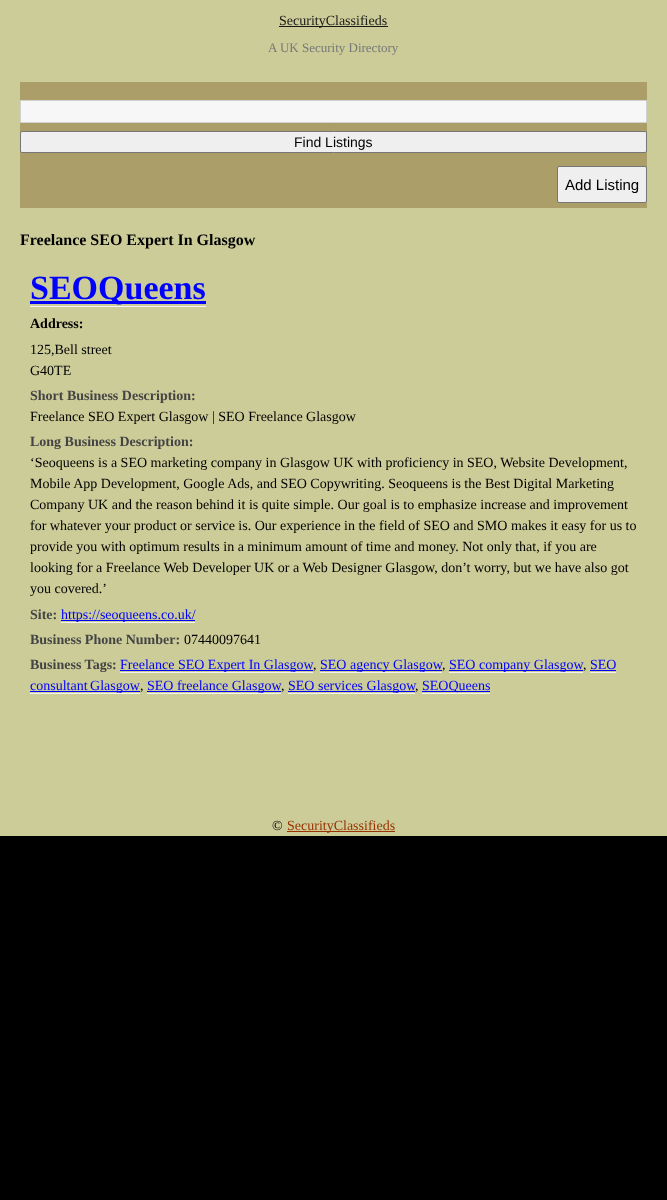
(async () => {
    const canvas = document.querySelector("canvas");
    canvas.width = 667;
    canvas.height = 1200;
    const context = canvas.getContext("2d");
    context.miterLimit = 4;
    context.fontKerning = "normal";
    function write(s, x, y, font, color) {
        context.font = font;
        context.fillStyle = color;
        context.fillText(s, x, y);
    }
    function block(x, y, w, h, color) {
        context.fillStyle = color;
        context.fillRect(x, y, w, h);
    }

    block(0, 0, 667, 1200, "rgb(0, 0, 0)");
    block(0, 0, 667, 836, "rgb(204, 204, 153)");
    block(279, 26, 109, 1, "rgb(26, 26, 26)");
    write("SecurityClassifieds", 279, 25, "14px Liberation Serif", "rgb(26, 26, 26)");
    write("A UK Security Directory", 268, 52, "13px Liberation Serif", "rgb(119, 119, 119)");
    block(20, 82, 627, 126, "rgb(172, 158, 104)");
    context.fillStyle = "rgb(247, 247, 247)";
    context.beginPath();
    context.rect(20.5, 100.5, 626, 22);
    context.fill();
    context.strokeStyle = "rgb(209, 209, 209)";
    context.stroke();
    context.fillStyle = "rgb(239, 239, 239)";
    context.beginPath();
    context.roundRect(20.5, 131.5, 626, 21, 1.5);
    context.fill();
    context.strokeStyle = "rgb(118, 118, 118)";
    context.stroke();
    write("Find Listings", 294, 147, "14px Liberation Sans", "rgb(0, 0, 0)");
    context.fillStyle = "rgb(239, 239, 239)";
    context.beginPath();
    context.roundRect(557.5, 166.5, 89, 36, 1.5);
    context.fill();
    context.stroke();
    write("Add Listing", 565, 190, "15px Liberation Sans", "rgb(0, 0, 0)");
    write("Freelance SEO Expert In Glasgow", 20, 245, "bold 16px Liberation Serif", "rgb(0, 0, 0)");
    block(30, 301, 176, 3, "rgb(0, 0, 255)");
    write("SEOQueens", 30, 299, "bold 34px Liberation Serif", "rgb(0, 0, 255)");
    block(30, 306, 176, 1, "rgb(243, 243, 243)");
    write("Address:", 30, 328, "bold 14px Liberation Serif", "rgb(0, 0, 0)");
    write("125,Bell street", 30, 354, "14px Liberation Serif", "rgb(0, 0, 0)");
    write("G40TE", 30, 375, "14px Liberation Serif", "rgb(0, 0, 0)");
    write("Short Business Description:", 30, 400, "bold 14px Liberation Serif", "rgb(68, 68, 68)");
    write("Freelance SEO Expert Glasgow | SEO Freelance Glasgow", 30, 421, "14px Liberation Serif", "rgb(0, 0, 0)");
    write("Long Business Description:", 30, 446, "bold 14px Liberation Serif", "rgb(68, 68, 68)");
    write("‘Seoqueens is a SEO marketing company in Glasgow UK with proficiency in SEO, Website Development,", 30, 467, "14px Liberation Serif", "rgb(0, 0, 0)");
    write("Mobile App Development, Google Ads, and SEO Copywriting. Seoqueens is the Best Digital Marketing", 30, 488, "14px Liberation Serif", "rgb(0, 0, 0)");
    write("Company UK and the reason behind it is quite simple. Our goal is to emphasize increase and improvement", 30, 509, "14px Liberation Serif", "rgb(0, 0, 0)");
    write("for whatever your product or service is. Our experience in the field of SEO and SMO makes it easy for us to", 30, 530, "14px Liberation Serif", "rgb(0, 0, 0)");
    write("provide you with optimum results in a minimum amount of time and money. Not only that, if you are", 30, 551, "14px Liberation Serif", "rgb(0, 0, 0)");
    write("looking for a Freelance Web Developer UK or a Web Designer Glasgow, don’t worry, but we have also got", 30, 572, "14px Liberation Serif", "rgb(0, 0, 0)");
    write("you covered.’", 30, 593, "14px Liberation Serif", "rgb(0, 0, 0)");
    write("Site:", 30, 619, "bold 14px Liberation Serif", "rgb(68, 68, 68)");
    block(61, 620, 134, 1, "rgb(0, 0, 255)");
    write("https://seoqueens.co.uk/", 61, 619, "14px Liberation Serif", "rgb(0, 0, 255)");
    block(61, 622, 134, 1, "rgb(243, 243, 243)");
    write("Business Phone Number:", 30, 644, "bold 14px Liberation Serif", "rgb(68, 68, 68)");
    write("07440097641", 184, 644, "14px Liberation Serif", "rgb(0, 0, 0)");
    write("Business Tags:", 30, 669, "bold 14px Liberation Serif", "rgb(68, 68, 68)");
    block(120, 670, 193, 1, "rgb(0, 0, 255)");
    write("Freelance SEO Expert In Glasgow", 120, 669, "14px Liberation Serif", "rgb(0, 0, 255)");
    write(",", 313, 669, "14px Liberation Serif", "rgb(0, 0, 0)");
    block(120, 672, 193, 1, "rgb(243, 243, 243)");
    block(320, 670, 122, 1, "rgb(0, 0, 255)");
    write("SEO agency Glasgow", 320, 669, "14px Liberation Serif", "rgb(0, 0, 255)");
    write(",", 442, 669, "14px Liberation Serif", "rgb(0, 0, 0)");
    block(320, 672, 122, 1, "rgb(243, 243, 243)");
    block(449, 670, 134, 1, "rgb(0, 0, 255)");
    write("SEO company Glasgow", 449, 669, "14px Liberation Serif", "rgb(0, 0, 255)");
    write(",", 583, 669, "14px Liberation Serif", "rgb(0, 0, 0)");
    block(449, 672, 134, 1, "rgb(243, 243, 243)");
    block(590, 672, 26, 1, "rgb(243, 243, 243)");
    block(590, 670, 26, 1, "rgb(0, 0, 255)");
    write("SEO", 590, 669, "14px Liberation Serif", "rgb(0, 0, 255)");
    block(30, 691, 110, 1, "rgb(0, 0, 255)");
    context.wordSpacing = "-1px";
    write("consultant Glasgow", 30, 690, "14px Liberation Serif", "rgb(0, 0, 255)");
    context.wordSpacing = "0px";
    write(",", 140, 690, "14px Liberation Serif", "rgb(0, 0, 0)");
    block(30, 693, 110, 1, "rgb(243, 243, 243)");
    block(147, 691, 134, 1, "rgb(0, 0, 255)");
    write("SEO freelance Glasgow", 147, 690, "14px Liberation Serif", "rgb(0, 0, 255)");
    write(",", 281, 690, "14px Liberation Serif", "rgb(0, 0, 0)");
    block(147, 693, 134, 1, "rgb(243, 243, 243)");
    block(288, 691, 127, 1, "rgb(0, 0, 255)");
    write("SEO services Glasgow", 288, 690, "14px Liberation Serif", "rgb(0, 0, 255)");
    write(",", 415, 690, "14px Liberation Serif", "rgb(0, 0, 0)");
    block(288, 693, 127, 1, "rgb(243, 243, 243)");
    block(422, 693, 68, 1, "rgb(243, 243, 243)");
    block(422, 691, 68, 1, "rgb(0, 0, 255)");
    write("SEOQueens", 422, 690, "14px Liberation Serif", "rgb(0, 0, 255)");
    write("©", 272, 830, "14px Liberation Serif", "rgb(0, 0, 0)");
    block(287, 831, 108, 1, "rgb(153, 51, 0)");
    write("SecurityClassifieds", 287, 830, "14px Liberation Serif", "rgb(153, 51, 0)");
})();
